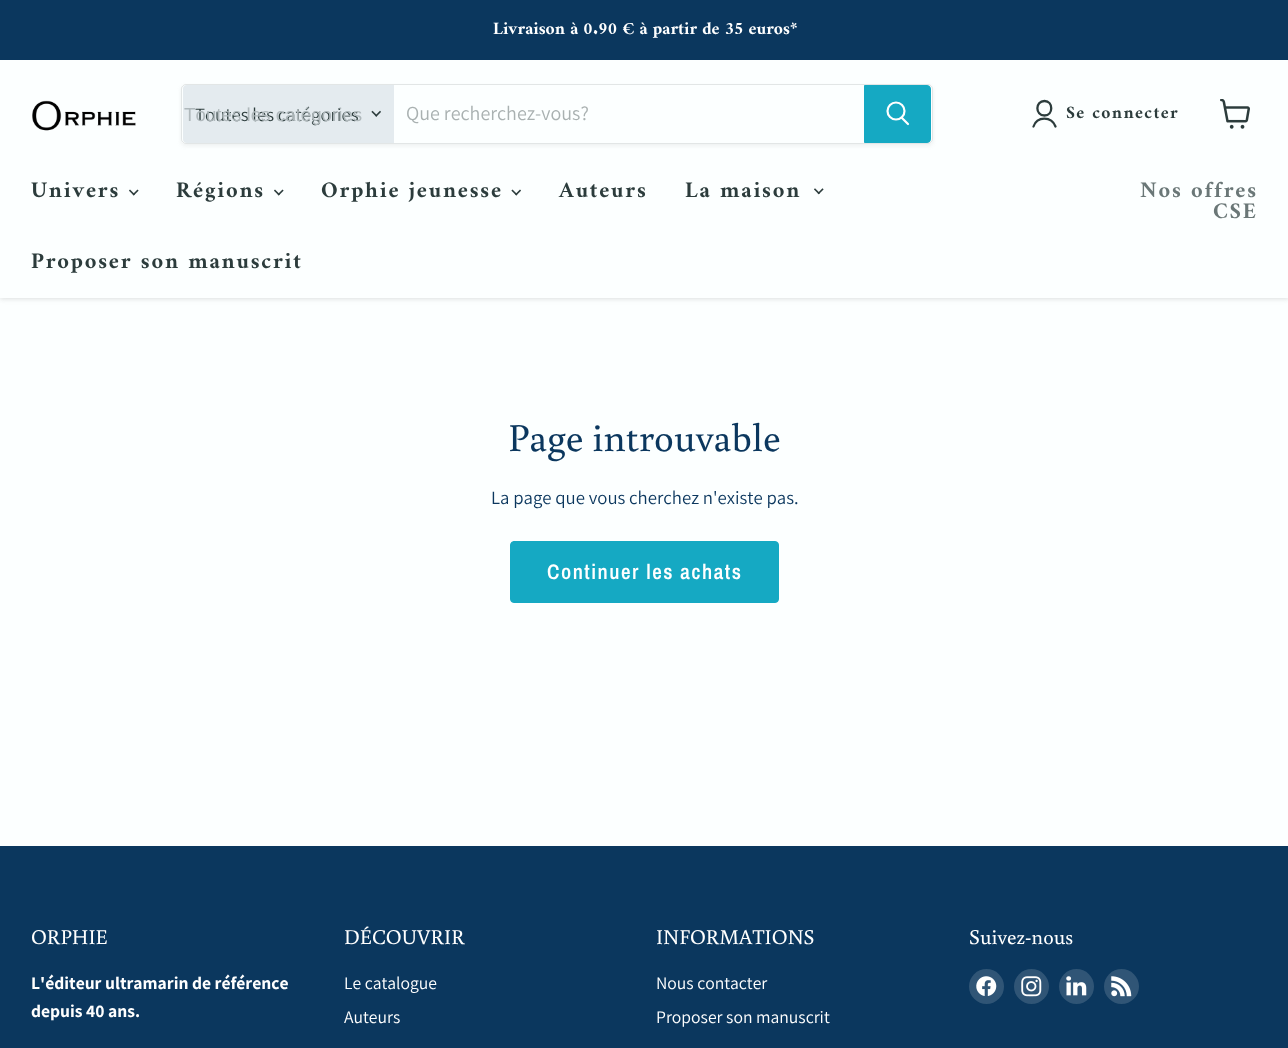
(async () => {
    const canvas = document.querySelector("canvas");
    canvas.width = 1288;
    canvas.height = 1048;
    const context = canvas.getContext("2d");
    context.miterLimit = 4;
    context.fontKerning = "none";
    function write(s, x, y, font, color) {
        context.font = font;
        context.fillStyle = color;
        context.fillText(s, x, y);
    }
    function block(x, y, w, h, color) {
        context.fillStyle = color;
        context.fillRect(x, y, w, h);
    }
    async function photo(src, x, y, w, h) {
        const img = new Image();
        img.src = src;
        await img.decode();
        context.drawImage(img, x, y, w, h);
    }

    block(0, 0, 1288, 1048, "rgb(252, 255, 255)");
    context.fillStyle = "rgba(126, 128, 128, 0.25)";
    context.filter = "blur(2.5px)";
    context.beginPath();
    context.rect(0, 61, 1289, 238);
    context.fill();
    context.filter = "none";
    block(0, 0, 1288, 60, "rgb(11, 55, 94)");
    write("Livraison à 0.90 € à partir de 35 euros*", 493, 34, "bold 17.6px Amiri", "rgb(255, 255, 255)");
    block(0, 60, 1288, 238, "rgb(252, 255, 255)");
    await photo("media/1.png", 32, 100, 104, 31);
    context.save();
    context.beginPath();
    context.moveTo(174, 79);
    context.lineTo(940, 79);
    context.lineTo(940, 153);
    context.lineTo(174, 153);
    context.closePath();
    context.moveTo(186, 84);
    context.lineTo(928, 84);
    context.bezierCurveTo(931, 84, 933, 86, 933, 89);
    context.lineTo(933, 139);
    context.bezierCurveTo(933, 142, 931, 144, 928, 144);
    context.lineTo(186, 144);
    context.bezierCurveTo(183, 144, 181, 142, 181, 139);
    context.lineTo(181, 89);
    context.bezierCurveTo(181, 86, 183, 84, 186, 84);
    context.closePath();
    context.clip("evenodd");
    context.fillStyle = "rgba(126, 128, 128, 0.11)";
    context.filter = "blur(2px)";
    context.beginPath();
    context.roundRect(181, 86, 752, 60, 5);
    context.fill();
    context.filter = "none";
    context.restore();
    context.beginPath();
    context.roundRect(181.5, 84.5, 751, 59, 4.5);
    context.strokeStyle = "rgba(126, 128, 128, 0.2)";
    context.stroke();
    context.fillStyle = "rgb(228, 235, 239)";
    context.beginPath();
    context.roundRect(183, 85, 211, 58, [4, 0, 0, 4]);
    context.fill();
    write("Toutes les catégories", 195, 121, "18.75px Assistant", "rgb(44, 60, 60)");
    write("Toutes les catégories", 184, 121, "18.75px Liberation Sans", "rgb(175, 184, 187)");
    await photo("media/2.png", 371, 110, 10, 7);
    write("Que recherchez-vous?", 406, 120, "20px Assistant", "rgb(169, 177, 177)");
    context.fillStyle = "rgb(21, 169, 195)";
    context.beginPath();
    context.roundRect(864.5, 85.5, 66, 57, [0, 3.5, 3.5, 0]);
    context.fill();
    context.strokeStyle = "rgb(21, 169, 195)";
    context.stroke();
    context.beginPath();
    context.moveTo(908, 124);
    context.lineTo(902, 118);
    context.strokeStyle = "rgb(255, 255, 255)";
    context.lineWidth = 2.2;
    context.lineCap = "round";
    context.stroke();
    context.beginPath();
    context.arc(896, 111, 8.5, 0, Math.PI * 2);
    context.stroke();
    context.beginPath();
    context.moveTo(1044.5, 115.5);
    context.bezierCurveTo(1053.5, 115.5, 1053.5, 101, 1044.5, 101);
    context.bezierCurveTo(1035, 101, 1035, 115.5, 1044.5, 115.5);
    context.closePath();
    context.moveTo(1055.5, 126.5);
    context.bezierCurveTo(1051.5, 116, 1037, 116, 1033.5, 126.5);
    context.strokeStyle = "rgb(44, 60, 60)";
    context.lineWidth = 2.3;
    context.lineJoin = "round";
    context.stroke();
    context.letterSpacing = "1.4px";
    write("Se connecter", 1066, 118, "bold 17.6px Amiri", "rgb(44, 60, 60)");
    await photo("media/3.png", 1220, 99, 30, 30);
    context.letterSpacing = "1.8px";
    write("Univers", 31, 197, "bold 22.5px Amiri", "rgb(44, 60, 60)");
    await photo("media/4.png", 129, 189, 10, 7);
    write("Régions", 176, 197, "bold 22.5px Amiri", "rgb(44, 60, 60)");
    await photo("media/4.png", 274, 189, 10, 7);
    write("Orphie jeunesse", 321, 197, "bold 22.5px Amiri", "rgb(44, 60, 60)");
    await photo("media/5.png", 511, 189, 10, 7);
    write("Auteurs", 559, 197, "bold 22.5px Amiri", "rgb(44, 60, 60)");
    write("La maison", 685, 197, "bold 22.5px Amiri", "rgb(44, 60, 60)");
    await photo("media/6.png", 814, 188, 10, 7);
    write("Proposer son manuscrit", 31, 268, "bold 22.5px Amiri", "rgb(44, 60, 60)");
    write("Nos offres", 1140, 197, "bold 22.5px Amiri", "rgb(106, 119, 119)");
    write("CSE", 1213, 218, "bold 22.5px Amiri", "rgb(106, 119, 119)");
    context.letterSpacing = "0px";
    write("Page introuvable", 508, 451, "39.5px Buenard", "rgb(11, 55, 94)");
    write("La page que vous cherchez n'existe pas.", 491, 504, "18.75px Assistant", "rgb(11, 55, 94)");
    context.fillStyle = "rgb(21, 169, 195)";
    context.beginPath();
    context.roundRect(510.5, 541.5, 268, 61, 3.5);
    context.fill();
    context.strokeStyle = "rgb(21, 169, 195)";
    context.lineWidth = 1;
    context.lineJoin = "miter";
    context.stroke();
    context.letterSpacing = "1.5px";
    write("Continuer les achats", 547, 579, "600 21px Archivo Narrow", "rgb(255, 255, 255)");
    block(0, 846, 1288, 202, "rgb(11, 55, 94)");
    context.letterSpacing = "0px";
    write("ORPHIE", 31, 944, "21px Buenard", "rgb(255, 255, 255)");
    write("L'éditeur ultramarin de référence", 31, 989, "bold 17.6px Assistant", "rgb(255, 255, 255)");
    write("depuis 40 ans.", 31, 1017, "bold 17.6px Assistant", "rgb(255, 255, 255)");
    write("DÉCOUVRIR", 344, 944, "21px Buenard", "rgb(255, 255, 255)");
    write("Le catalogue", 344, 989, "17.6px Assistant", "rgb(255, 255, 255)");
    write("Auteurs", 344, 1023, "17.6px Assistant", "rgb(255, 255, 255)");
    write("INFORMATIONS", 656, 944, "21px Buenard", "rgb(255, 255, 255)");
    write("Nous contacter", 656, 989, "17.6px Assistant", "rgb(255, 255, 255)");
    write("Proposer son manuscrit", 656, 1023, "17.6px Assistant", "rgb(255, 255, 255)");
    write("Suivez-nous", 969, 944, "21px Buenard", "rgb(255, 255, 255)");
    context.fillStyle = "rgb(48, 85, 118)";
    context.beginPath();
    context.arc(986.5, 986.5, 17.5, 0, Math.PI * 2);
    context.fill();
    await photo("media/7.png", 976, 976, 21, 20);
    context.beginPath();
    context.arc(1031.5, 986.5, 17.5, 0, Math.PI * 2);
    context.fill();
    await photo("media/8.png", 1021, 976, 21, 21);
    context.beginPath();
    context.arc(1076.5, 986.5, 17.5, 0, Math.PI * 2);
    context.fill();
    await photo("media/9.png", 1066, 976, 21, 20);
    context.beginPath();
    context.arc(1121.5, 986.5, 17.5, 0, Math.PI * 2);
    context.fill();
    await photo("media/10.png", 1111, 976, 21, 21);
})();
